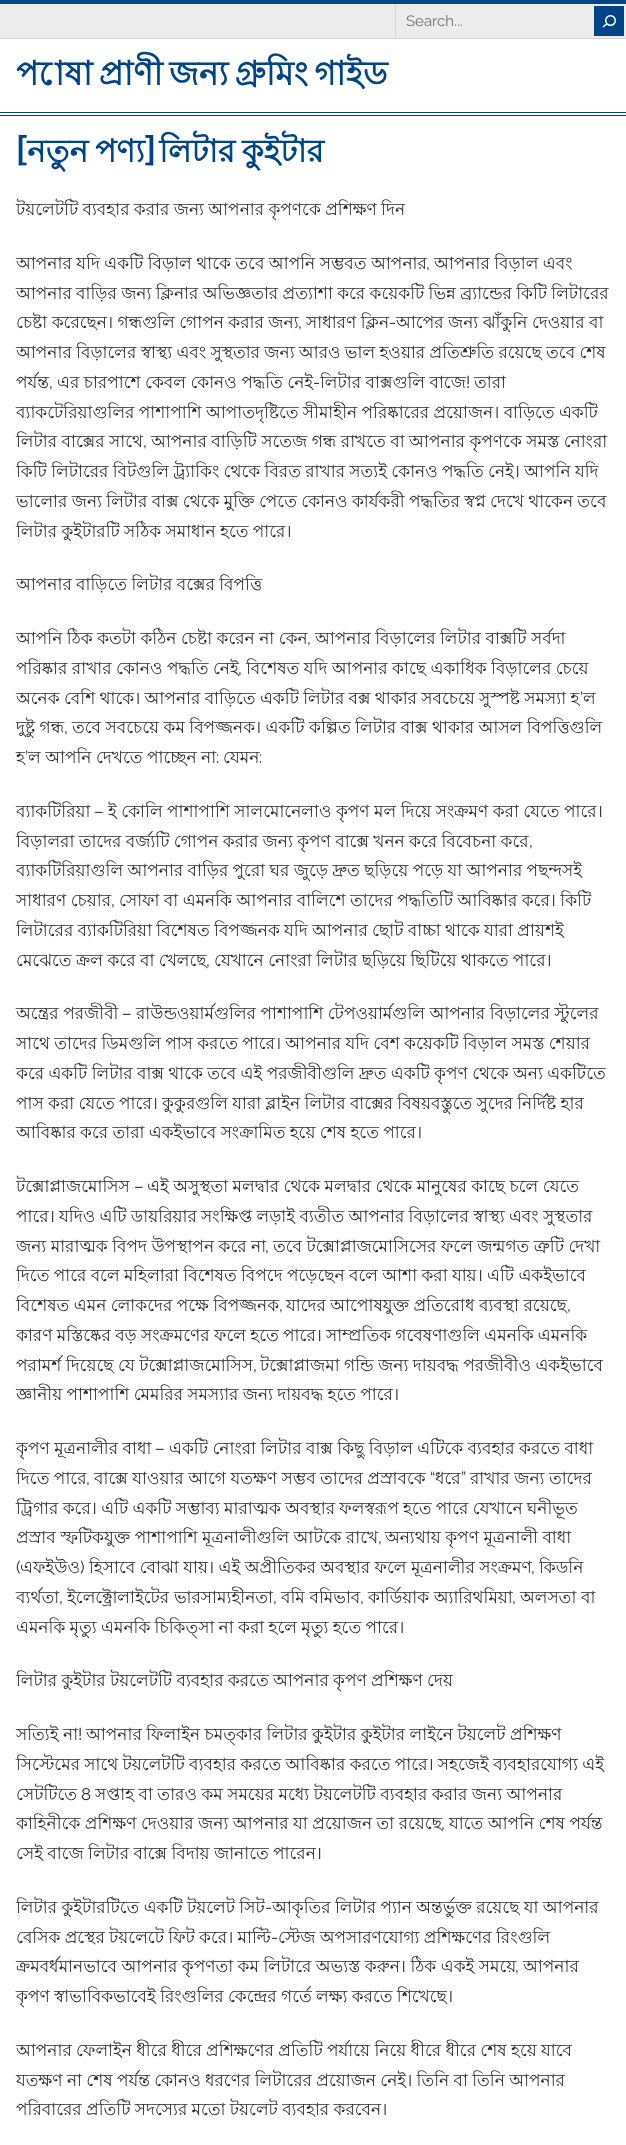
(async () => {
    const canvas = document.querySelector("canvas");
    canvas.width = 626;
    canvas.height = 2145;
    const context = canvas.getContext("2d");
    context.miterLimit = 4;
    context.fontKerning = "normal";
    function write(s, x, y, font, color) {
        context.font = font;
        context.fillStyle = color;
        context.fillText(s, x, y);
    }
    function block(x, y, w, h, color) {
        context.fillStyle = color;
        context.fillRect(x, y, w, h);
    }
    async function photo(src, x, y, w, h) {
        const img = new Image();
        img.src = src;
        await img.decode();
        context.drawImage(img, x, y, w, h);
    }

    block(0, 0, 626, 2145, "rgb(255, 255, 255)");
    block(0, 0, 626, 4, "rgb(0, 68, 136)");
    block(0, 4, 626, 34, "rgb(236, 236, 236)");
    block(0, 38, 626, 1, "rgb(212, 212, 212)");
    block(395, 4, 1, 34, "rgb(212, 212, 212)");
    write("Search...", 406, 26, "15px Raleway", "rgb(117, 117, 117)");
    block(594, 6, 30, 30, "rgb(0, 68, 136)");
    await photo("media/1.png", 602, 15, 14, 13);
    context.wordSpacing = "-3px";
    write("পোষা প্রাণী জন্য গ্রুমিং গাইড", 16, 85, "bold 33.25px Lohit Bengali", "rgb(0, 68, 136)");
    block(0, 112, 626, 4, "rgb(0, 68, 136)");
    block(0, 113, 626, 2, "rgb(255, 255, 255)");
    context.wordSpacing = "0px";
    write("[", 16, 162, "bold 31.5px Bitter", "rgb(0, 68, 136)");
    context.wordSpacing = "-2px";
    write("নতুন পণ্য", 27, 162, "bold 31.5px Lohit Bengali", "rgb(0, 68, 136)");
    context.wordSpacing = "0px";
    write("]", 145, 162, "bold 31.5px Bitter", "rgb(0, 68, 136)");
    context.wordSpacing = "-2px";
    write("লিটার কুইটার", 159, 162, "bold 31.5px Lohit Bengali", "rgb(0, 68, 136)");
    context.wordSpacing = "-0.4px";
    write("টয়লেটটি ব্যবহার করার জন্য আপনার কৃপণকে প্রশিক্ষণ দিন", 16, 215, "17px Lohit Bengali", "rgb(44, 44, 44)");
    context.wordSpacing = "-0.25px";
    write("আপনার যদি একটি বিড়াল থাকে তবে আপনি সম্ভবত আপনার", 16, 269, "17px Lohit Bengali", "rgb(44, 44, 44)");
    context.wordSpacing = "0px";
    write(",", 426, 269, "17px Raleway", "rgb(44, 44, 44)");
    context.wordSpacing = "-0.25px";
    write("আপনার বিড়াল এবং", 434, 269, "17px Lohit Bengali", "rgb(44, 44, 44)");
    context.wordSpacing = "-0.4px";
    write("আপনার বাড়ির জন্য ক্লিনার অভিজ্ঞতার প্রত্যাশা করে কয়েকটি ভিন্ন ব্র্যান্ডের কিটি লিটারের", 16, 299, "17px Lohit Bengali", "rgb(44, 44, 44)");
    context.wordSpacing = "-0.25px";
    write("চেষ্টা করেছেন। গন্ধগুলি গোপন করার জন্য", 16, 328, "17px Lohit Bengali", "rgb(44, 44, 44)");
    write("সাধারণ ক্লিন", 306, 328, "17px Lohit Bengali", "rgb(44, 44, 44)");
    context.wordSpacing = "0px";
    write("-", 389, 328, "17px Raleway", "rgb(44, 44, 44)");
    context.wordSpacing = "-0.25px";
    write("আপের জন্য ঝাঁকুনি দেওয়ার বা", 396, 328, "17px Lohit Bengali", "rgb(44, 44, 44)");
    context.wordSpacing = "0px";
    write(",", 298, 328, "17px Raleway", "rgb(44, 44, 44)");
    context.wordSpacing = "-0.4px";
    write("আপনার বিড়ালের স্বাস্থ্য এবং সুস্থতার জন্য আরও ভাল হওয়ার প্রতিশ্রুতি রয়েছে তবে শেষ", 16, 358, "17px Lohit Bengali", "rgb(44, 44, 44)");
    context.wordSpacing = "0px";
    write("পর্যন্ত", 16, 388, "17px Lohit Bengali", "rgb(44, 44, 44)");
    context.wordSpacing = "-0.25px";
    write("এর চারপাশে কেবল কোনও পদ্ধতি নেই", 57, 388, "17px Lohit Bengali", "rgb(44, 44, 44)");
    context.wordSpacing = "0px";
    write("-", 313, 388, "17px Raleway", "rgb(44, 44, 44)");
    context.wordSpacing = "-0.25px";
    write("লিটার বাক্সগুলি বাজে", 320, 388, "17px Lohit Bengali", "rgb(44, 44, 44)");
    context.wordSpacing = "0px";
    write("!", 466, 388, "17px Raleway", "rgb(44, 44, 44)");
    write("তারা", 474, 388, "17px Lohit Bengali", "rgb(44, 44, 44)");
    write(",", 49, 388, "17px Raleway", "rgb(44, 44, 44)");
    context.wordSpacing = "-0.4px";
    write("ব্যাকটেরিয়াগুলির পাশাপাশি আপাতদৃষ্টিতে সীমাহীন পরিষ্কারের প্রয়োজন। বাড়িতে একটি", 16, 418, "17px Lohit Bengali", "rgb(44, 44, 44)");
    context.wordSpacing = "-0.25px";
    write("লিটার বাক্সের সাথে", 16, 447, "17px Lohit Bengali", "rgb(44, 44, 44)");
    context.wordSpacing = "0px";
    write(",", 143, 447, "17px Raleway", "rgb(44, 44, 44)");
    context.wordSpacing = "-0.25px";
    write("আপনার বাড়িটি সতেজ গন্ধ রাখতে বা আপনার কৃপণকে সমস্ত নোংরা", 151, 447, "17px Lohit Bengali", "rgb(44, 44, 44)");
    context.wordSpacing = "-0.4px";
    write("কিটি লিটারের বিটগুলি ট্র্যাকিং থেকে বিরত রাখার সত্যই কোনও পদ্ধতি নেই। আপনি যদি", 16, 477, "17px Lohit Bengali", "rgb(44, 44, 44)");
    write("ভালোর জন্য লিটার বাক্স থেকে মুক্তি পেতে কোনও কার্যকরী পদ্ধতির স্বপ্ন দেখে থাকেন তবে", 16, 507, "17px Lohit Bengali", "rgb(44, 44, 44)");
    write("লিটার কুইটারটি সঠিক সমাধান হতে পারে।", 16, 537, "17px Lohit Bengali", "rgb(44, 44, 44)");
    write("আপনার বাড়িতে লিটার বক্সের বিপত্তি", 16, 590, "17px Lohit Bengali", "rgb(44, 44, 44)");
    context.wordSpacing = "-0.25px";
    write("আপনি ঠিক কতটা কঠিন চেষ্টা করেন না কেন", 16, 644, "17px Lohit Bengali", "rgb(44, 44, 44)");
    context.wordSpacing = "0px";
    write(",", 307, 644, "17px Raleway", "rgb(44, 44, 44)");
    context.wordSpacing = "-0.25px";
    write("আপনার বিড়ালের লিটার বাক্সটি সর্বদা", 315, 644, "17px Lohit Bengali", "rgb(44, 44, 44)");
    write("পরিষ্কার রাখার কোনও পদ্ধতি নেই", 16, 674, "17px Lohit Bengali", "rgb(44, 44, 44)");
    context.wordSpacing = "0px";
    write(",", 238, 674, "17px Raleway", "rgb(44, 44, 44)");
    context.wordSpacing = "-0.25px";
    write("বিশেষত যদি আপনার কাছে একাধিক বিড়ালের চেয়ে", 246, 674, "17px Lohit Bengali", "rgb(44, 44, 44)");
    context.wordSpacing = "-0.4px";
    write("অনেক বেশি থাকে। আপনার বাড়িতে একটি লিটার বক্স থাকার সবচেয়ে সুস্পষ্ট সমস্যা হ", 16, 704, "17px Lohit Bengali", "rgb(44, 44, 44)");
    context.wordSpacing = "0px";
    write("’", 580, 704, "17px Raleway", "rgb(44, 44, 44)");
    write("ল", 583, 704, "17px Lohit Bengali", "rgb(44, 44, 44)");
    context.wordSpacing = "-0.25px";
    write("দুষ্টু গন্ধ", 16, 733, "17px Lohit Bengali", "rgb(44, 44, 44)");
    context.wordSpacing = "0px";
    write(",", 64, 733, "17px Raleway", "rgb(44, 44, 44)");
    context.wordSpacing = "-0.25px";
    write("তবে সবচেয়ে কম বিপজ্জনক। একটি কল্পিত লিটার বাক্স থাকার আসল বিপত্তিগুলি", 72, 733, "17px Lohit Bengali", "rgb(44, 44, 44)");
    context.wordSpacing = "0px";
    write("হ", 16, 763, "17px Lohit Bengali", "rgb(44, 44, 44)");
    write("’", 25, 763, "17px Raleway", "rgb(44, 44, 44)");
    context.wordSpacing = "-0.25px";
    write("ল আপনি দেখতে পাচ্ছেন না", 28, 763, "17px Lohit Bengali", "rgb(44, 44, 44)");
    context.wordSpacing = "0px";
    write(":", 216, 763, "17px Raleway", "rgb(44, 44, 44)");
    write("যেমন", 223, 763, "17px Lohit Bengali", "rgb(44, 44, 44)");
    write(":", 259, 763, "17px Raleway", "rgb(44, 44, 44)");
    write("ব্যাকটিরিয়া", 16, 817, "17px Lohit Bengali", "rgb(44, 44, 44)");
    write("–", 94, 817, "17px Raleway", "rgb(44, 44, 44)");
    context.wordSpacing = "-0.25px";
    write("ই কোলি পাশাপাশি সালমোনেলাও কৃপণ মল দিয়ে সংক্রমণ করা যেতে পারে।", 108, 817, "17px Lohit Bengali", "rgb(44, 44, 44)");
    context.wordSpacing = "-0.4px";
    write("বিড়ালরা তাদের বর্জ্যটি গোপন করার জন্য কৃপণ বাক্সে খনন করে বিবেচনা করে", 16, 847, "17px Lohit Bengali", "rgb(44, 44, 44)");
    context.wordSpacing = "0px";
    write(",", 529, 847, "17px Raleway", "rgb(44, 44, 44)");
    context.wordSpacing = "-0.4px";
    write("ব্যাকটিরিয়াগুলি আপনার বাড়ির পুরো ঘর জুড়ে দ্রুত ছড়িয়ে পড়ে যা আপনার পছন্দসই", 16, 876, "17px Lohit Bengali", "rgb(44, 44, 44)");
    context.wordSpacing = "-0.25px";
    write("সাধারণ চেয়ার", 16, 906, "17px Lohit Bengali", "rgb(44, 44, 44)");
    context.wordSpacing = "0px";
    write(",", 111, 906, "17px Raleway", "rgb(44, 44, 44)");
    context.wordSpacing = "-0.25px";
    write("সোফা বা এমনকি আপনার বালিশে তাদের পদ্ধতিটি আবিষ্কার করে। কিটি", 119, 906, "17px Lohit Bengali", "rgb(44, 44, 44)");
    context.wordSpacing = "-0.4px";
    write("লিটারের ব্যাকটিরিয়া বিশেষত বিপজ্জনক যদি আপনার ছোট বাচ্চা থাকে যারা প্রায়শই", 16, 936, "17px Lohit Bengali", "rgb(44, 44, 44)");
    context.wordSpacing = "-0.25px";
    write("মেঝেতে ক্রল করে বা খেলছে", 16, 966, "17px Lohit Bengali", "rgb(44, 44, 44)");
    context.wordSpacing = "0px";
    write(",", 206, 966, "17px Raleway", "rgb(44, 44, 44)");
    context.wordSpacing = "-0.25px";
    write("যেখানে নোংরা লিটার ছড়িয়ে ছিটিয়ে থাকতে পারে।", 214, 966, "17px Lohit Bengali", "rgb(44, 44, 44)");
    write("অন্ত্রের পরজীবী", 16, 1019, "17px Lohit Bengali", "rgb(44, 44, 44)");
    context.wordSpacing = "0px";
    write("–", 122, 1019, "17px Raleway", "rgb(44, 44, 44)");
    context.wordSpacing = "-0.25px";
    write("রাউন্ডওয়ার্মগুলির পাশাপাশি টেপওয়ার্মগুলি আপনার বিড়ালের স্টুলের", 136, 1019, "17px Lohit Bengali", "rgb(44, 44, 44)");
    context.wordSpacing = "-0.4px";
    write("সাথে তাদের ডিমগুলি পাস করতে পারে। আপনার যদি বেশ কয়েকটি বিড়াল সমস্ত শেয়ার", 16, 1049, "17px Lohit Bengali", "rgb(44, 44, 44)");
    write("করে একটি লিটার বাক্স থাকে তবে এই পরজীবীগুলি দ্রুত একটি কৃপণ থেকে অন্য একটিতে", 16, 1079, "17px Lohit Bengali", "rgb(44, 44, 44)");
    write("পাস করা যেতে পারে। কুকুরগুলি যারা ব্লাইন লিটার বাক্সের বিষয়বস্তুতে সুদের নির্দিষ্ট হার", 16, 1109, "17px Lohit Bengali", "rgb(44, 44, 44)");
    write("আবিষ্কার করে তারা একইভাবে সংক্রামিত হয়ে শেষ হতে পারে।", 16, 1138, "17px Lohit Bengali", "rgb(44, 44, 44)");
    context.wordSpacing = "0px";
    write("টক্সোপ্লাজমোসিস", 16, 1192, "17px Lohit Bengali", "rgb(44, 44, 44)");
    write("–", 134, 1192, "17px Raleway", "rgb(44, 44, 44)");
    context.wordSpacing = "-0.25px";
    write("এই অসুস্থতা মলদ্বার থেকে মলদ্বার থেকে মানুষের কাছে চলে যেতে", 147, 1192, "17px Lohit Bengali", "rgb(44, 44, 44)");
    context.wordSpacing = "-0.4px";
    write("পারে। যদিও এটি ডায়রিয়ার সংক্ষিপ্ত লড়াই ব্যতীত আপনার বিড়ালের স্বাস্থ্য এবং সুস্থতার", 16, 1222, "17px Lohit Bengali", "rgb(44, 44, 44)");
    context.wordSpacing = "-0.25px";
    write("জন্য মারাত্মক বিপদ উপস্থাপন করে না", 16, 1252, "17px Lohit Bengali", "rgb(44, 44, 44)");
    context.wordSpacing = "0px";
    write(",", 265, 1252, "17px Raleway", "rgb(44, 44, 44)");
    context.wordSpacing = "-0.25px";
    write("তবে টক্সোপ্লাজমোসিসের ফলে জন্মগত ত্রুটি দেখা", 273, 1252, "17px Lohit Bengali", "rgb(44, 44, 44)");
    context.wordSpacing = "-0.4px";
    write("দিতে পারে বলে মহিলারা বিশেষত বিপদে পড়েছেন বলে আশা করা যায়। এটি একইভাবে", 16, 1281, "17px Lohit Bengali", "rgb(44, 44, 44)");
    context.wordSpacing = "-0.25px";
    write("বিশেষত এমন লোকদের পক্ষে বিপজ্জনক", 16, 1311, "17px Lohit Bengali", "rgb(44, 44, 44)");
    context.wordSpacing = "0px";
    write(",", 279, 1311, "17px Raleway", "rgb(44, 44, 44)");
    context.wordSpacing = "-0.25px";
    write("যাদের আপোষযুক্ত প্রতিরোধ ব্যবস্থা রয়েছে", 286, 1311, "17px Lohit Bengali", "rgb(44, 44, 44)");
    context.wordSpacing = "0px";
    write(",", 567, 1311, "17px Raleway", "rgb(44, 44, 44)");
    context.wordSpacing = "-0.4px";
    write("কারণ মস্তিষ্কের বড় সংক্রমণের ফলে হতে পারে। সাম্প্রতিক গবেষণাগুলি এমনকি এমনকি", 16, 1341, "17px Lohit Bengali", "rgb(44, 44, 44)");
    context.wordSpacing = "-0.25px";
    write("পরামর্শ দিয়েছে যে টক্সোপ্লাজমোসিস", 16, 1371, "17px Lohit Bengali", "rgb(44, 44, 44)");
    context.wordSpacing = "0px";
    write(",", 253, 1371, "17px Raleway", "rgb(44, 44, 44)");
    context.wordSpacing = "-0.25px";
    write("টক্সোপ্লাজমা গন্ডি জন্য দায়বদ্ধ পরজীবীও একইভাবে", 260, 1371, "17px Lohit Bengali", "rgb(44, 44, 44)");
    context.wordSpacing = "-0.4px";
    write("জ্ঞানীয় পাশাপাশি মেমরির সমস্যার জন্য দায়বদ্ধ হতে পারে।", 16, 1400, "17px Lohit Bengali", "rgb(44, 44, 44)");
    context.wordSpacing = "-0.25px";
    write("কৃপণ মূত্রনালীর বাধা", 16, 1454, "17px Lohit Bengali", "rgb(44, 44, 44)");
    context.wordSpacing = "0px";
    write("–", 155, 1454, "17px Raleway", "rgb(44, 44, 44)");
    context.wordSpacing = "-0.25px";
    write("একটি নোংরা লিটার বাক্স কিছু বিড়াল এটিকে ব্যবহার করতে বাধা", 169, 1454, "17px Lohit Bengali", "rgb(44, 44, 44)");
    write("দিতে পারে", 16, 1484, "17px Lohit Bengali", "rgb(44, 44, 44)");
    context.wordSpacing = "0px";
    write(",", 86, 1484, "17px Raleway", "rgb(44, 44, 44)");
    context.wordSpacing = "-0.25px";
    write("বাক্সে যাওয়ার আগে যতক্ষণ সম্ভব তাদের প্রস্রাবকে", 94, 1484, "17px Lohit Bengali", "rgb(44, 44, 44)");
    context.wordSpacing = "0px";
    write("“", 430, 1484, "17px Raleway", "rgb(44, 44, 44)");
    write("ধরে", 435, 1484, "17px Lohit Bengali", "rgb(44, 44, 44)");
    write("”", 461, 1484, "17px Raleway", "rgb(44, 44, 44)");
    context.wordSpacing = "-0.25px";
    write("রাখার জন্য তাদের", 470, 1484, "17px Lohit Bengali", "rgb(44, 44, 44)");
    context.wordSpacing = "-0.4px";
    write("ট্রিগার করে। এটি একটি সম্ভাব্য মারাত্মক অবস্থার ফলস্বরূপ হতে পারে যেখানে ঘনীভূত", 16, 1514, "17px Lohit Bengali", "rgb(44, 44, 44)");
    context.wordSpacing = "-0.25px";
    write("প্রস্রাব স্ফটিকযুক্ত পাশাপাশি মূত্রনালীগুলি আটকে রাখে", 16, 1543, "17px Lohit Bengali", "rgb(44, 44, 44)");
    context.wordSpacing = "0px";
    write(",", 378, 1543, "17px Raleway", "rgb(44, 44, 44)");
    context.wordSpacing = "-0.25px";
    write("অন্যথায় কৃপণ মূত্রনালী বাধা", 385, 1543, "17px Lohit Bengali", "rgb(44, 44, 44)");
    context.wordSpacing = "0px";
    write("(", 16, 1573, "17px Raleway", "rgb(44, 44, 44)");
    write("এফইউও", 20, 1573, "17px Lohit Bengali", "rgb(44, 44, 44)");
    write(")", 80, 1573, "17px Raleway", "rgb(44, 44, 44)");
    context.wordSpacing = "-0.25px";
    write("হিসাবে বোঝা যায়। এই অপ্রীতিকর অবস্থার ফলে মূত্রনালীর সংক্রমণ", 89, 1573, "17px Lohit Bengali", "rgb(44, 44, 44)");
    context.wordSpacing = "0px";
    write(",", 531, 1573, "17px Raleway", "rgb(44, 44, 44)");
    write("কিডনি", 539, 1573, "17px Lohit Bengali", "rgb(44, 44, 44)");
    write("ব্যর্থতা", 16, 1603, "17px Lohit Bengali", "rgb(44, 44, 44)");
    write(",", 59, 1603, "17px Raleway", "rgb(44, 44, 44)");
    write("ইলেক্ট্রোলাইটের ভারসাম্যহীনতা", 67, 1603, "17px Lohit Bengali", "rgb(44, 44, 44)");
    write(",", 273, 1603, "17px Raleway", "rgb(44, 44, 44)");
    write("বমি বমিভাব", 281, 1603, "17px Lohit Bengali", "rgb(44, 44, 44)");
    write(",", 360, 1603, "17px Raleway", "rgb(44, 44, 44)");
    write("কার্ডিয়াক অ্যারিথমিয়া", 368, 1603, "17px Lohit Bengali", "rgb(44, 44, 44)");
    write(",", 512, 1603, "17px Raleway", "rgb(44, 44, 44)");
    write("অলসতা বা", 520, 1603, "17px Lohit Bengali", "rgb(44, 44, 44)");
    context.wordSpacing = "-0.4px";
    write("এমনকি মৃত্যু এমনকি চিকিত্সা না করা হলে মৃত্যু হতে পারে।", 16, 1633, "17px Lohit Bengali", "rgb(44, 44, 44)");
    write("লিটার কুইটার টয়লেটটি ব্যবহার করতে আপনার কৃপণ প্রশিক্ষণ দেয়", 16, 1686, "17px Lohit Bengali", "rgb(44, 44, 44)");
    context.wordSpacing = "-0.25px";
    write("সত্যিই না", 16, 1740, "17px Lohit Bengali", "rgb(44, 44, 44)");
    context.wordSpacing = "0px";
    write("!", 78, 1740, "17px Raleway", "rgb(44, 44, 44)");
    context.wordSpacing = "-0.25px";
    write("আপনার ফিলাইন চমত্কার লিটার কুইটার কুইটার লাইনে টয়লেট প্রশিক্ষণ", 86, 1740, "17px Lohit Bengali", "rgb(44, 44, 44)");
    context.wordSpacing = "-0.4px";
    write("সিস্টেমের সাথে টয়লেটটি ব্যবহার করতে আবিষ্কার করতে পারে। সহজেই ব্যবহারযোগ্য এই", 16, 1770, "17px Lohit Bengali", "rgb(44, 44, 44)");
    context.wordSpacing = "0px";
    write("সেটটিতে", 16, 1800, "17px Lohit Bengali", "rgb(44, 44, 44)");
    write("8", 81, 1800, "17px Raleway", "rgb(44, 44, 44)");
    context.wordSpacing = "-0.25px";
    write("সপ্তাহ বা তারও কম সময়ের মধ্যে টয়লেটটি ব্যবহার করার জন্য আপনার", 95, 1800, "17px Lohit Bengali", "rgb(44, 44, 44)");
    write("কাহিনীকে প্রশিক্ষণ দেওয়ার জন্য আপনার যা প্রয়োজন তা রয়েছে", 16, 1829, "17px Lohit Bengali", "rgb(44, 44, 44)");
    context.wordSpacing = "0px";
    write(",", 441, 1829, "17px Raleway", "rgb(44, 44, 44)");
    context.wordSpacing = "-0.25px";
    write("যাতে আপনি শেষ পর্যন্ত", 449, 1829, "17px Lohit Bengali", "rgb(44, 44, 44)");
    context.wordSpacing = "-0.4px";
    write("সেই বাজে লিটার বাক্সে বিদায় জানাতে পারেন।", 16, 1859, "17px Lohit Bengali", "rgb(44, 44, 44)");
    write("লিটার কুইটারটিতে একটি টয়লেট সিট", 16, 1913, "17px Lohit Bengali", "rgb(44, 44, 44)");
    context.wordSpacing = "0px";
    write("-", 265, 1913, "17px Raleway", "rgb(44, 44, 44)");
    context.wordSpacing = "-0.4px";
    write("আকৃতির লিটার প্যান অন্তর্ভুক্ত রয়েছে যা আপনার", 272, 1913, "17px Lohit Bengali", "rgb(44, 44, 44)");
    write("বেসিক প্রস্থের টয়লেটে ফিট করে। মাল্টি", 16, 1943, "17px Lohit Bengali", "rgb(44, 44, 44)");
    context.wordSpacing = "0px";
    write("-", 271, 1943, "17px Raleway", "rgb(44, 44, 44)");
    context.wordSpacing = "-0.4px";
    write("স্টেজ অপসারণযোগ্য প্রশিক্ষণের রিংগুলি", 278, 1943, "17px Lohit Bengali", "rgb(44, 44, 44)");
    context.wordSpacing = "-0.25px";
    write("ক্রমবর্ধমানভাবে আপনার কৃপণতা কম লিটারে অভ্যস্ত করুন। ঠিক একই সময়ে", 16, 1972, "17px Lohit Bengali", "rgb(44, 44, 44)");
    context.wordSpacing = "0px";
    write(",", 515, 1972, "17px Raleway", "rgb(44, 44, 44)");
    write("আপনার", 523, 1972, "17px Lohit Bengali", "rgb(44, 44, 44)");
    context.wordSpacing = "-0.4px";
    write("কৃপণ স্বাভাবিকভাবেই রিংগুলির কেন্দ্রের গর্তে লক্ষ্য করতে শিখেছে।", 16, 2002, "17px Lohit Bengali", "rgb(44, 44, 44)");
    write("আপনার ফেলাইন ধীরে ধীরে প্রশিক্ষণের প্রতিটি পর্যায়ে নিয়ে ধীরে ধীরে শেষ হয়ে যাবে", 16, 2056, "17px Lohit Bengali", "rgb(44, 44, 44)");
    write("যতক্ষণ না শেষ পর্যন্ত কোনও ধরণের লিটারের প্রয়োজন নেই। তিনি বা তিনি আপনার", 16, 2086, "17px Lohit Bengali", "rgb(44, 44, 44)");
    write("পরিবারের প্রতিটি সদস্যের মতো টয়লেট ব্যবহার করবেন।", 16, 2115, "17px Lohit Bengali", "rgb(44, 44, 44)");
})();
